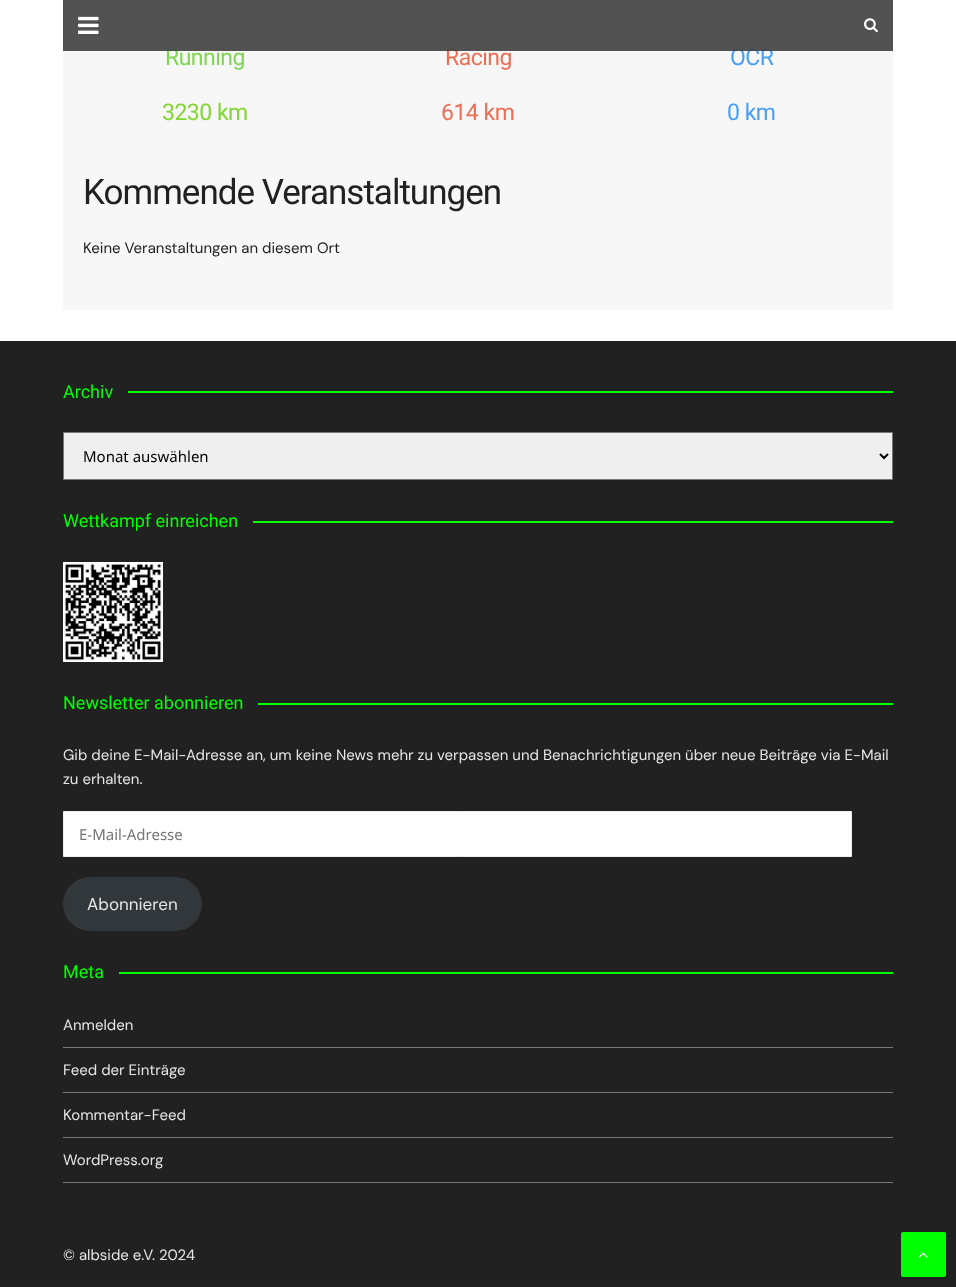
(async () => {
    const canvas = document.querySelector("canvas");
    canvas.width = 956;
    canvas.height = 1287;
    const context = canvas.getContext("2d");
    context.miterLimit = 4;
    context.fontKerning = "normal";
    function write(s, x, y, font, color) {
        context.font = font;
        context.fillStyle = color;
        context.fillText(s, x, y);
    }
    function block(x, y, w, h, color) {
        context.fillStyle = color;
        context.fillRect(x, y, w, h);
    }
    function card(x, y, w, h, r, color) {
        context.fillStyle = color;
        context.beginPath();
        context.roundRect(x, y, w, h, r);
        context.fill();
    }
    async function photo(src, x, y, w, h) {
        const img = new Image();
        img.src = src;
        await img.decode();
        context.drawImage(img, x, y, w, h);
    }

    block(0, 0, 956, 1287, "rgb(255, 255, 255)");
    block(63, 0, 830, 310, "rgb(247, 247, 247)");
    context.letterSpacing = "-0.5px";
    write("Running", 165, 65, "23px Roboto", "rgb(129, 214, 83)");
    write("Racing", 445, 65, "23px Roboto", "rgb(237, 110, 87)");
    write("OCR", 730, 65, "23px Roboto", "rgb(71, 159, 248)");
    block(63, 0, 830, 51, "rgba(68, 68, 68, 0.8)");
    block(63, 0, 830, 51, "rgba(68, 68, 68, 0.6)");
    await photo("media/1.png", 78, 16, 21, 18);
    await photo("media/2.png", 864, 18, 14, 15);
    write("3230 km", 162, 120, "23px Roboto", "rgb(129, 214, 49)");
    write("614 km", 441, 120, "23px Roboto", "rgb(237, 110, 87)");
    write("0 km", 727, 120, "23px Roboto", "rgb(71, 159, 248)");
    context.letterSpacing = "-1px";
    write("Kommende Veranstaltungen", 83, 204, "35px Roboto", "rgb(33, 33, 33)");
    context.letterSpacing = "0px";
    write("Keine Veranstaltungen an diesem Ort", 83, 253, "15px DM Sans", "rgb(33, 33, 33)");
    block(0, 341, 956, 946, "rgb(33, 33, 33)");
    write("Archiv", 63, 398, "18px Roboto", "rgb(0, 255, 0)");
    block(128, 391, 765, 2, "rgb(0, 255, 0)");
    context.fillStyle = "rgb(239, 239, 239)";
    context.beginPath();
    context.rect(63.5, 432.5, 829, 47);
    context.fill();
    context.strokeStyle = "rgb(119, 119, 119)";
    context.stroke();
    context.beginPath();
    context.moveTo(880, 454);
    context.lineTo(884, 458);
    context.lineTo(888, 454);
    context.strokeStyle = "rgb(0, 0, 0)";
    context.lineWidth = 2;
    context.stroke();
    write("Monat auswählen", 83, 462, "15px Noto Sans", "rgb(0, 0, 0)");
    write("Wettkampf einreichen", 63, 527, "18px Roboto", "rgb(0, 255, 0)");
    block(253, 521, 640, 2, "rgb(0, 255, 0)");
    await photo("media/3.png", 63, 562, 100, 100);
    write("Newsletter abonnieren", 63, 709, "18px Roboto", "rgb(0, 255, 0)");
    block(258, 703, 635, 2, "rgb(0, 255, 0)");
    write("Gib deine E-Mail-Adresse an, um keine News mehr zu verpassen und Benachrichtigungen über neue Beiträge via E-Mail", 63, 760, "15px DM Sans", "rgb(229, 229, 229)");
    write("zu erhalten.", 63, 784, "15px DM Sans", "rgb(229, 229, 229)");
    context.fillStyle = "rgb(255, 255, 255)";
    context.beginPath();
    context.rect(63.5, 811.5, 788, 45);
    context.fill();
    context.strokeStyle = "rgb(238, 238, 238)";
    context.lineWidth = 1;
    context.stroke();
    write("E-Mail-Adresse", 79, 840, "15px Noto Sans", "rgb(117, 117, 117)");
    card(63, 877, 139, 54, 27, "rgb(50, 55, 60)");
    write("Abonnieren", 87, 910, "17px DM Sans", "rgb(229, 229, 229)");
    write("Meta", 63, 978, "18px Roboto", "rgb(0, 255, 0)");
    block(119, 972, 774, 2, "rgb(0, 255, 0)");
    block(63, 1047, 830, 1, "rgb(119, 119, 119)");
    write("Anmelden", 63, 1030, "15px DM Sans", "rgb(229, 229, 229)");
    block(63, 1092, 830, 1, "rgb(119, 119, 119)");
    write("Feed der Einträge", 63, 1075, "15px DM Sans", "rgb(229, 229, 229)");
    block(63, 1137, 830, 1, "rgb(119, 119, 119)");
    write("Kommentar-Feed", 63, 1120, "15px DM Sans", "rgb(229, 229, 229)");
    block(63, 1182, 830, 1, "rgb(119, 119, 119)");
    write("WordPress.org", 63, 1165, "15px DM Sans", "rgb(229, 229, 229)");
    write("© albside e.V. 2024", 63, 1260, "15px DM Sans", "rgb(229, 229, 229)");
    card(901, 1232, 45, 45, 2, "rgb(0, 255, 0)");
    await photo("media/4.png", 918, 1252, 10, 6);
})();
